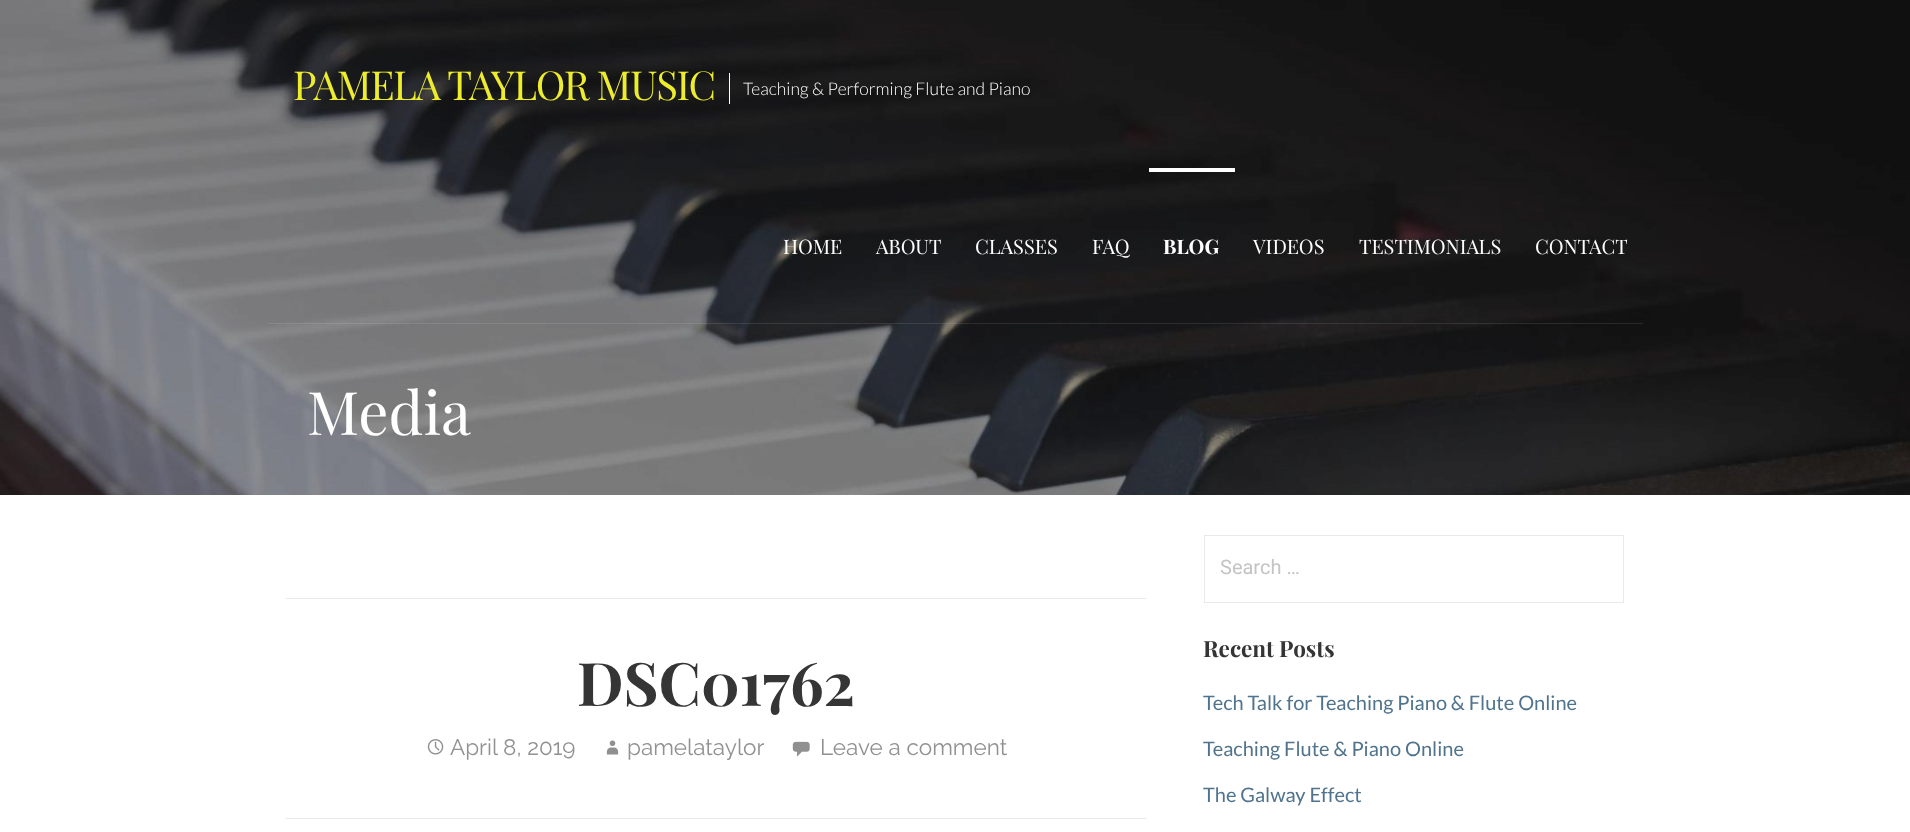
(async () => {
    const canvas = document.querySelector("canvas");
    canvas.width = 1910;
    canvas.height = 832;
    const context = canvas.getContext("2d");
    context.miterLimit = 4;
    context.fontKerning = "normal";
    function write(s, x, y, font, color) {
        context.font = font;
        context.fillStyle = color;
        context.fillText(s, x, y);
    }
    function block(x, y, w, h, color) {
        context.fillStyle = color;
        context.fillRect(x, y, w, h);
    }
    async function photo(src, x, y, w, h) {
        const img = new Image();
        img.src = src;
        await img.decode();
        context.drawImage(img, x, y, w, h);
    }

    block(0, 0, 1910, 832, "rgb(255, 255, 255)");
    await photo("media/1.png", 0, 0, 1910, 495);
    block(268, 323, 1375, 1, "rgba(255, 255, 255, 0.1)");
    context.letterSpacing = "-1.25px";
    write("PAMELA TAYLOR MUSIC", 293, 100, "40px Playfair Display", "rgb(237, 237, 45)");
    block(729, 73, 1, 31, "rgb(255, 255, 255)");
    context.letterSpacing = "0px";
    write("Teaching & Performing Flute and Piano", 743, 95, "300 17.5px Lato", "rgb(255, 255, 255)");
    write("HOME", 783, 254, "20px Playfair Display", "rgb(255, 255, 255)");
    write("ABOUT", 876, 254, "20px Playfair Display", "rgb(255, 255, 255)");
    write("CLASSES", 975, 254, "20px Playfair Display", "rgb(255, 255, 255)");
    write("FAQ", 1092, 254, "20px Playfair Display", "rgb(255, 255, 255)");
    block(1149, 168, 86, 4, "rgb(255, 255, 255)");
    write("BLOG", 1163, 254, "bold 20px Playfair Display", "rgb(255, 255, 255)");
    write("VIDEOS", 1253, 254, "20px Playfair Display", "rgb(255, 255, 255)");
    write("TESTIMONIALS", 1359, 254, "20px Playfair Display", "rgb(255, 255, 255)");
    write("CONTACT", 1535, 254, "20px Playfair Display", "rgb(255, 255, 255)");
    write("Media", 307, 435, "60px Playfair Display", "rgb(255, 255, 255)");
    block(286, 598, 860, 1, "rgb(233, 233, 233)");
    block(286, 818, 860, 1, "rgb(233, 233, 233)");
    write("DSC01762", 577, 706, "bold 60px Playfair Display", "rgb(53, 53, 53)");
    await photo("media/2.png", 427, 739, 17, 16);
    write("April 8, 2019", 450, 755, "22.5px Raleway", "rgb(145, 145, 145)");
    await photo("media/3.png", 606, 740, 13, 15);
    write("pamelataylor", 627, 755, "22.5px Raleway", "rgb(145, 145, 145)");
    await photo("media/4.png", 792, 741, 18, 16);
    write("Leave a comment", 820, 755, "22.5px Raleway", "rgb(145, 145, 145)");
    context.strokeStyle = "rgb(233, 233, 233)";
    context.strokeRect(1204.5, 535.5, 419, 67);
    write("Search …", 1220, 574, "20px Roboto", "rgb(196, 196, 196)");
    write("Recent Posts", 1203, 657, "bold 22.5px Playfair Display", "rgb(53, 53, 53)");
    write("Tech Talk for Teaching Piano & Flute Online", 1203, 710, "20px Lato", "rgb(81, 116, 142)");
    write("Teaching Flute & Piano Online", 1203, 756, "20px Lato", "rgb(81, 116, 142)");
    write("The Galway Effect", 1203, 802, "20px Lato", "rgb(81, 116, 142)");
})();
